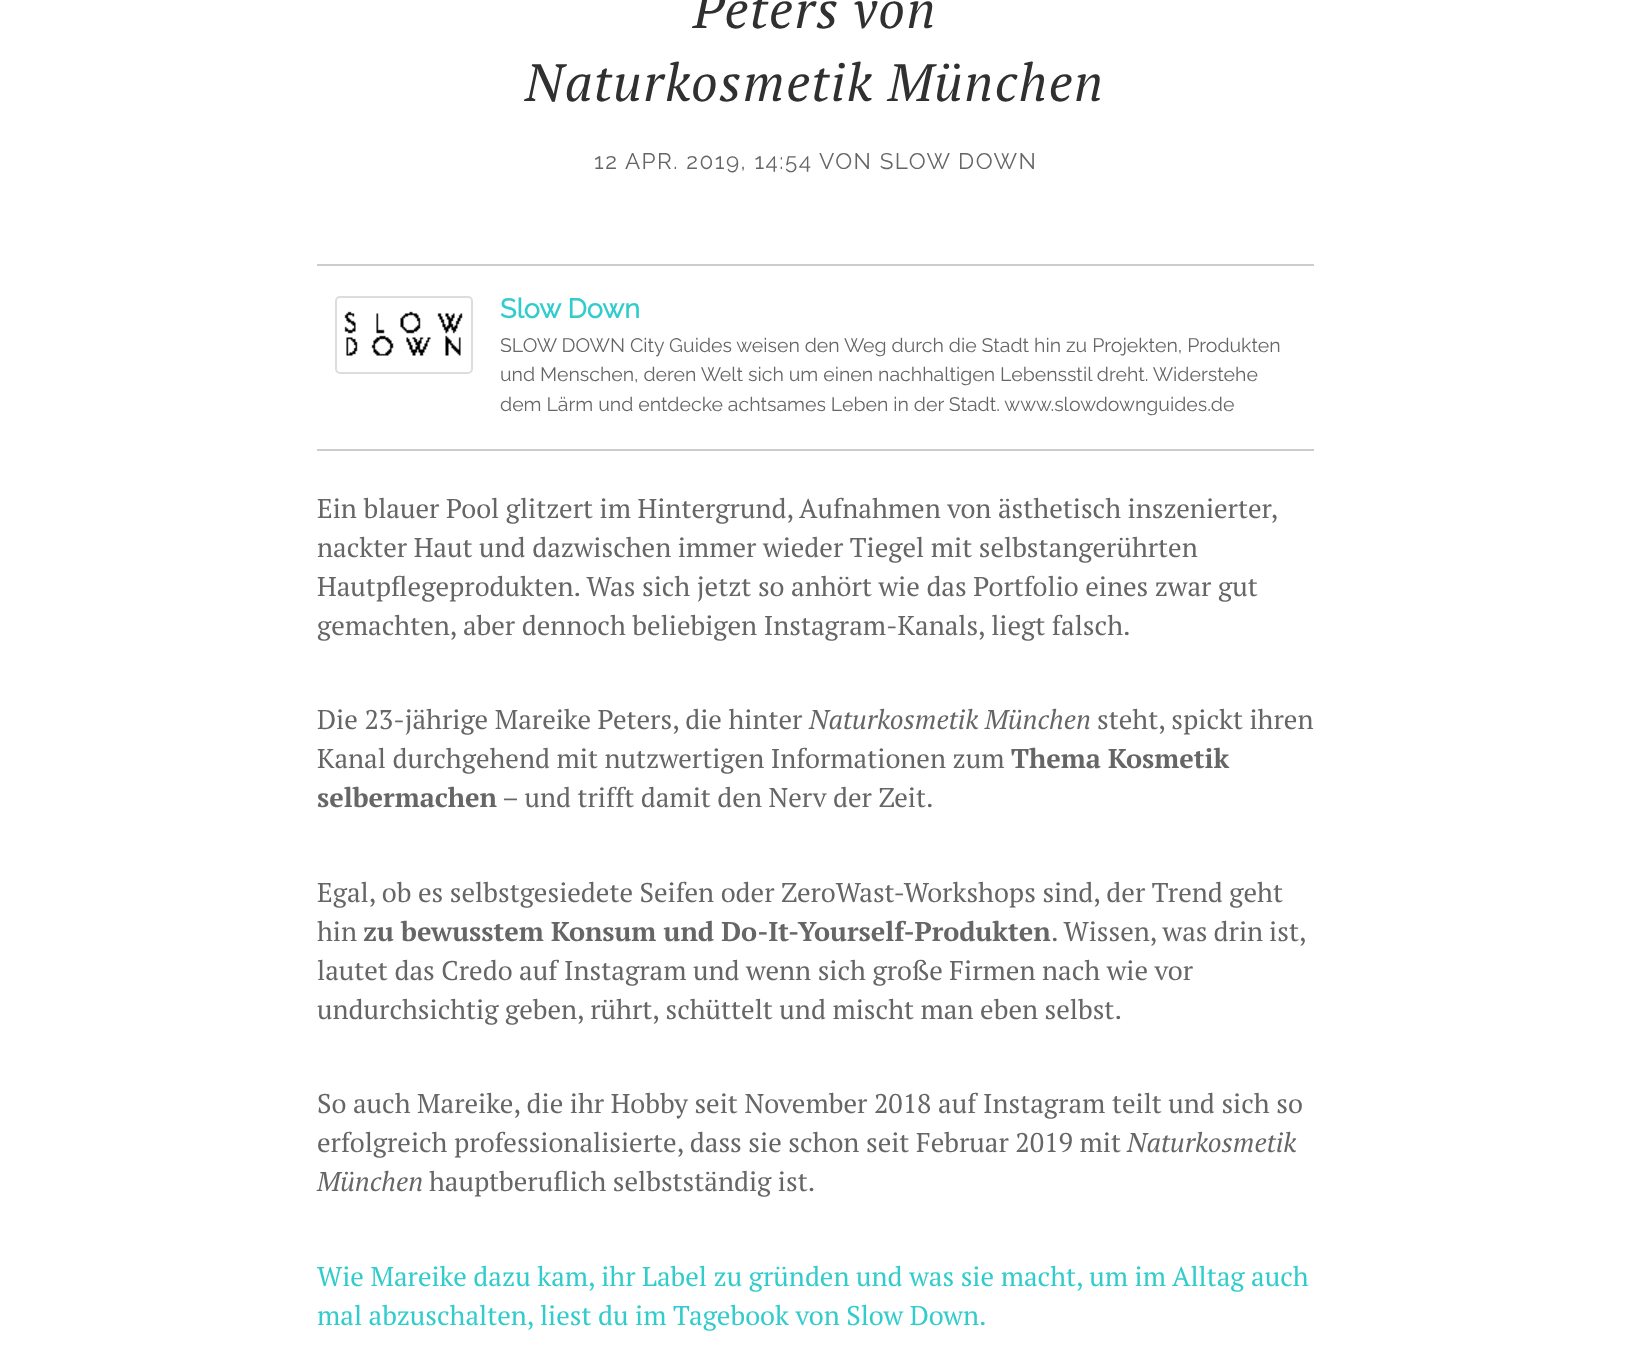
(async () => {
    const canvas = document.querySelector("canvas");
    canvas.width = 1630;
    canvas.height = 1346;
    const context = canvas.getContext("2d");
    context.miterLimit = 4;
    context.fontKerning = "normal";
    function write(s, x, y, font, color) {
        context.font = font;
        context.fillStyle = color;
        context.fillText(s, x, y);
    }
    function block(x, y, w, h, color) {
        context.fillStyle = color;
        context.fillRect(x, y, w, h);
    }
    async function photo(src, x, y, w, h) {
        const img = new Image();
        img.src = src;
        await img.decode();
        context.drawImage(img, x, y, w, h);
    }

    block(0, 0, 1630, 1346, "rgb(255, 255, 255)");
    context.letterSpacing = "1.5px";
    write("Peters von", 693, 28, "italic 52.5px PT Serif", "rgb(48, 48, 48)");
    write("Naturkosmetik München", 525, 101, "italic 52.5px PT Serif", "rgb(48, 48, 48)");
    write("12 APR. 2019, 14:54", 594, 169, "100 22.5px Raleway", "rgb(102, 102, 102)");
    write("VON SLOW DOWN", 819, 169, "100 22.5px Raleway", "rgb(102, 102, 102)");
    block(317, 264, 997, 2, "rgb(204, 204, 204)");
    block(317, 449, 997, 2, "rgb(204, 204, 204)");
    context.beginPath();
    context.roundRect(336, 297, 136, 76, 4);
    context.strokeStyle = "rgb(221, 221, 221)";
    context.lineWidth = 2;
    context.stroke();
    await photo("media/1.png", 344, 311, 119, 45);
    context.letterSpacing = "0px";
    write("Slow Down", 500, 318, "bold 27px Raleway", "rgb(51, 204, 204)");
    write("SLOW DOWN City Guides weisen den Weg durch die Stadt hin zu Projekten, Produkten", 500, 352, "100 19.5px Raleway", "rgb(102, 102, 102)");
    write("und Menschen, deren Welt sich um einen nachhaltigen Lebensstil dreht. Widerstehe", 500, 381, "100 19.5px Raleway", "rgb(102, 102, 102)");
    write("dem Lärm und entdecke achtsames Leben in der Stadt. www.slowdownguides.de", 500, 411, "100 19.5px Raleway", "rgb(102, 102, 102)");
    write("Ein blauer Pool glitzert im Hintergrund, Aufnahmen von ästhetisch inszenierter,", 317, 518, "27px PT Serif", "rgb(102, 102, 102)");
    write("nackter Haut und dazwischen immer wieder Tiegel mit selbstangerührten", 317, 557, "27px PT Serif", "rgb(102, 102, 102)");
    write("Hautpflegeprodukten. Was sich jetzt so anhört wie das Portfolio eines zwar gut", 317, 596, "27px PT Serif", "rgb(102, 102, 102)");
    write("gemachten, aber dennoch beliebigen Instagram-Kanals, liegt falsch.", 317, 635, "27px PT Serif", "rgb(102, 102, 102)");
    write("Die 23-jährige Mareike Peters, die hinter", 317, 729, "27px PT Serif", "rgb(102, 102, 102)");
    write("Naturkosmetik München", 809, 729, "italic 27px PT Serif", "rgb(102, 102, 102)");
    write("steht, spickt ihren", 1097, 729, "27px PT Serif", "rgb(102, 102, 102)");
    write("Kanal durchgehend mit nutzwertigen Informationen zum", 317, 768, "27px PT Serif", "rgb(102, 102, 102)");
    write("Thema Kosmetik", 1011, 768, "bold 27px PT Serif", "rgb(102, 102, 102)");
    write("selbermachen", 317, 807, "bold 27px PT Serif", "rgb(102, 102, 102)");
    write("– und trifft damit den Nerv der Zeit.", 502, 807, "27px PT Serif", "rgb(102, 102, 102)");
    write("Egal, ob es selbstgesiedete Seifen oder ZeroWast-Workshops sind, der Trend geht", 317, 902, "27px PT Serif", "rgb(102, 102, 102)");
    write("hin", 317, 941, "27px PT Serif", "rgb(102, 102, 102)");
    write("zu bewusstem Konsum und Do-It-Yourself-Produkten", 363, 941, "bold 27px PT Serif", "rgb(102, 102, 102)");
    context.wordSpacing = "-0.5px";
    write(". Wissen, was drin ist,", 1051, 941, "27px PT Serif", "rgb(102, 102, 102)");
    context.wordSpacing = "0px";
    write("lautet das Credo auf Instagram und wenn sich große Firmen nach wie vor", 317, 980, "27px PT Serif", "rgb(102, 102, 102)");
    write("undurchsichtig geben, rührt, schüttelt und mischt man eben selbst.", 317, 1019, "27px PT Serif", "rgb(102, 102, 102)");
    write("So auch Mareike, die ihr Hobby seit November 2018 auf Instagram teilt und sich so", 317, 1113, "27px PT Serif", "rgb(102, 102, 102)");
    write("erfolgreich professionalisierte, dass sie schon seit Februar 2019 mit", 317, 1152, "27px PT Serif", "rgb(102, 102, 102)");
    write("Naturkosmetik", 1127, 1152, "italic 27px PT Serif", "rgb(102, 102, 102)");
    write("München", 317, 1191, "italic 27px PT Serif", "rgb(102, 102, 102)");
    write("hauptberuflich selbstständig ist.", 429, 1191, "27px PT Serif", "rgb(102, 102, 102)");
    write("Wie Mareike dazu kam, ihr Label zu gründen und was sie macht, um im Alltag auch", 317, 1286, "27px PT Serif", "rgb(51, 204, 204)");
    write("mal abzuschalten, liest du im Tagebook von Slow Down.", 317, 1325, "27px PT Serif", "rgb(51, 204, 204)");
})();
